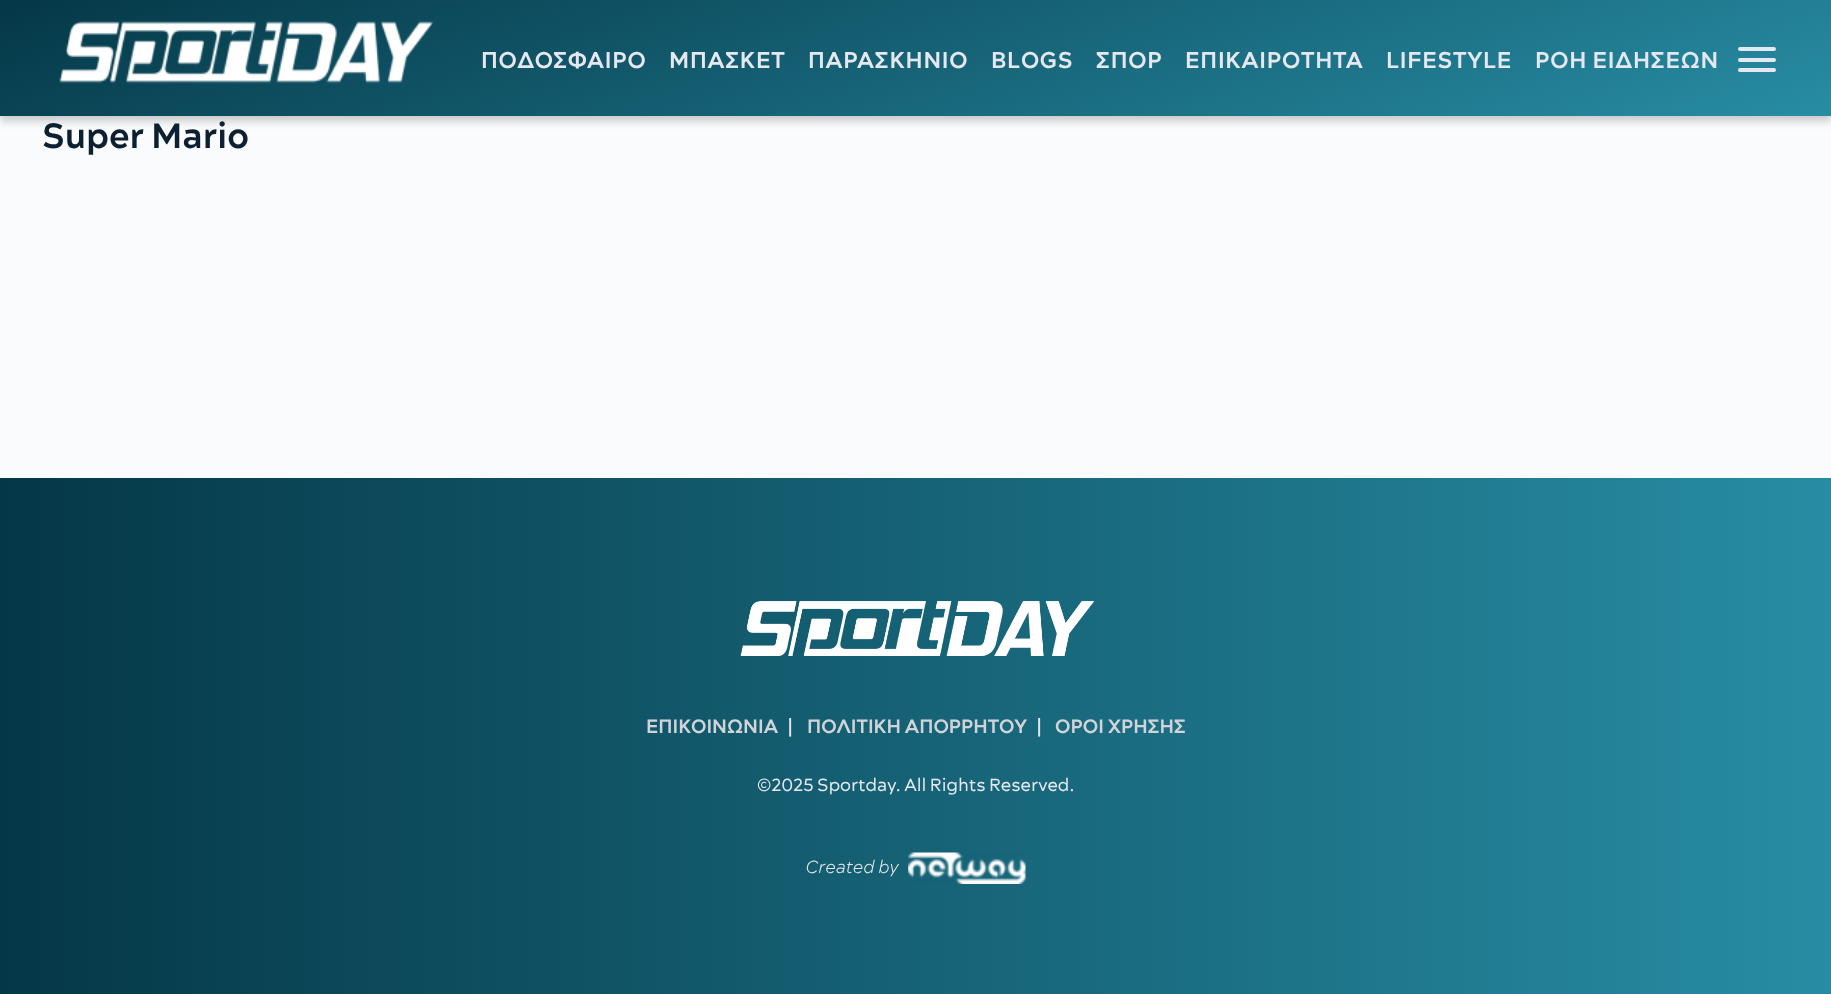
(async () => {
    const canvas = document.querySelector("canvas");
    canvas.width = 1831;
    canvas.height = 994;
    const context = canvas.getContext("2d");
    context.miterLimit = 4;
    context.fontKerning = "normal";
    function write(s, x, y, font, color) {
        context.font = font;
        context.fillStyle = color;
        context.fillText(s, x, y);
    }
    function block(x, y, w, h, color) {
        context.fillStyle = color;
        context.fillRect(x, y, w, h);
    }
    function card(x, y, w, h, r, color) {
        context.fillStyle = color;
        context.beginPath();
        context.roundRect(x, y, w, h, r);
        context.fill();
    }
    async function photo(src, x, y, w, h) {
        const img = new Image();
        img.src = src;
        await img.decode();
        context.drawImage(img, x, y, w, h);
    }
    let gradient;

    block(0, 0, 1831, 994, "rgb(250, 251, 252)");
    context.fillStyle = "rgba(0, 0, 0, 0.2)";
    context.filter = "blur(4.5px)";
    context.beginPath();
    context.rect(0, 5, 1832, 116);
    context.fill();
    context.filter = "none";
    gradient = context.createLinearGradient(765, -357, 1067, 472);
    gradient.addColorStop(0, "rgb(1, 47, 62)");
    gradient.addColorStop(1, "rgb(43, 149, 173)");
    context.fillStyle = gradient;
    context.fillRect(0, 0, 1831, 116);
    await photo("media/1.png", 59, 21, 375, 63);
    context.letterSpacing = "0.75px";
    write("ΠΟΔΟΣΦΑΙΡΟ", 481, 68, "bold 22.75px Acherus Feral", "rgb(229, 232, 240)");
    write("ΜΠΑΣΚΕΤ", 669, 68, "bold 22.75px Acherus Feral", "rgb(229, 232, 240)");
    write("ΠΑΡΑΣΚΗΝΙΟ", 808, 68, "bold 22.75px Acherus Feral", "rgb(229, 232, 240)");
    write("BLOGS", 991, 68, "bold 22.75px Acherus Feral", "rgb(229, 232, 240)");
    write("ΣΠΟΡ", 1096, 68, "bold 22.75px Acherus Feral", "rgb(229, 232, 240)");
    write("ΕΠΙΚΑΙΡΟΤΗΤΑ", 1185, 68, "bold 22.75px Acherus Feral", "rgb(229, 232, 240)");
    write("LIFESTYLE", 1386, 68, "bold 22.75px Acherus Feral", "rgb(229, 232, 240)");
    write("ΡΟΗ ΕΙΔΗΣΕΩΝ", 1535, 68, "bold 22.75px Acherus Feral", "rgb(229, 232, 240)");
    card(1738, 47, 38, 4, 2, "rgb(229, 232, 240)");
    card(1738, 58, 38, 4, 2, "rgb(229, 232, 240)");
    card(1738, 68, 38, 4, 2, "rgb(229, 232, 240)");
    context.letterSpacing = "0px";
    write("Super Mario", 42, 148, "bold 35px Acherus Feral", "rgb(13, 32, 50)");
    gradient = context.createLinearGradient(-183, 736, 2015, 736);
    gradient.addColorStop(0, "rgb(1, 47, 62)");
    gradient.addColorStop(1, "rgb(43, 149, 173)");
    context.fillStyle = gradient;
    context.fillRect(0, 478, 1831, 516);
    await photo("media/2.png", 740, 601, 354, 55);
    write("ΕΠΙΚΟΙΝΩΝΙΑ", 646, 733, "bold 19.25px Acherus Feral", "rgb(208, 212, 216)");
    write("|", 787, 735, "22px Acherus Feral", "rgb(229, 232, 240)");
    write("ΠΟΛΙΤΙΚΗ ΑΠΟΡΡΗΤΟΥ", 807, 733, "bold 19.25px Acherus Feral", "rgb(208, 212, 216)");
    write("|", 1036, 735, "22px Acherus Feral", "rgb(229, 232, 240)");
    write("ΟΡΟΙ ΧΡΗΣΗΣ", 1055, 733, "bold 19.25px Acherus Feral", "rgb(208, 212, 216)");
    write("©2025 Sportday. All Rights Reserved.", 757, 791, "17.5px Acherus Feral", "rgb(229, 232, 240)");
    write("Created by", 806, 873, "italic 300 17.5px Acherus Feral", "rgb(229, 232, 240)");
    await photo("media/3.png", 908, 852, 118, 32);
})();
